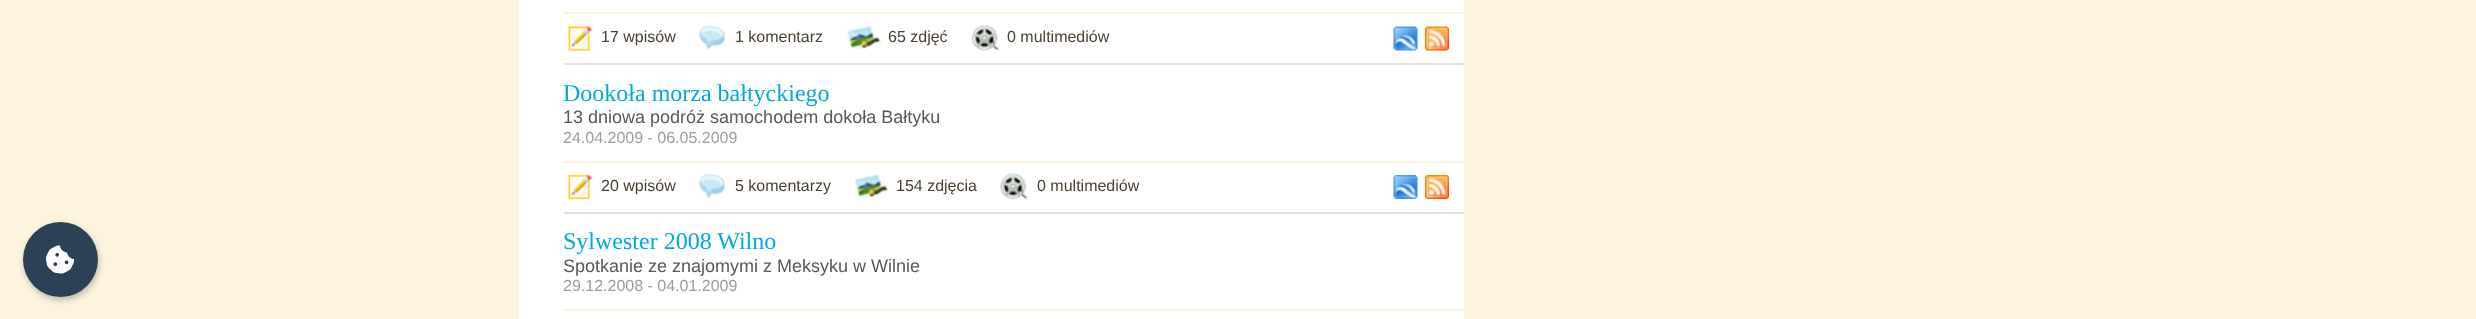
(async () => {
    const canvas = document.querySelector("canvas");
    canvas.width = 2476;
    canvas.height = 319;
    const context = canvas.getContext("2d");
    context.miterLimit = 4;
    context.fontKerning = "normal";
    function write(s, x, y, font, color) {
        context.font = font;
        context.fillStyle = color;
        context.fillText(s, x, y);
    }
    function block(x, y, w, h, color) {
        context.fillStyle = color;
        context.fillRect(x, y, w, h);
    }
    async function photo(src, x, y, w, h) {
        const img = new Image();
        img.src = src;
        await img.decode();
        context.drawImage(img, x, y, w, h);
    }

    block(0, 0, 2476, 319, "rgb(252, 244, 221)");
    context.fillStyle = "rgba(0, 0, 0, 0.25)";
    context.filter = "blur(3px)";
    context.beginPath();
    context.roundRect(24, 225, 75, 75, 37.5);
    context.fill();
    context.filter = "none";
    context.fillStyle = "rgb(45, 65, 86)";
    context.beginPath();
    context.arc(60.5, 259.5, 37.5, 0, Math.PI * 2);
    context.fill();
    await photo("media/1.png", 45, 245, 30, 29);
    block(519, 0, 945, 319, "rgb(255, 255, 255)");
    block(564, 12, 900, 2, "rgb(252, 245, 220)");
    block(564, 63, 900, 2, "rgb(226, 226, 226)");
    await photo("media/2.png", 568, 26, 25, 25);
    write("17 wpisów", 601, 42, "16px Liberation Sans", "rgb(75, 66, 51)");
    await photo("media/3.png", 698, 25, 27, 25);
    write("1 komentarz", 735, 42, "16px Liberation Sans", "rgb(75, 66, 51)");
    await photo("media/4.png", 847, 25, 34, 25);
    write("65 zdjęć", 888, 42, "16px Liberation Sans", "rgb(75, 66, 51)");
    await photo("media/5.png", 971, 24, 29, 27);
    write("0 multimediów", 1007, 42, "16px Liberation Sans", "rgb(75, 66, 51)");
    await photo("media/6.png", 1393, 26, 25, 25);
    await photo("media/7.png", 1425, 26, 24, 25);
    block(564, 161, 900, 2, "rgb(252, 245, 220)");
    write("Dookoła morza bałtyckiego", 563, 101, "24px Liberation Serif", "rgb(2, 169, 222)");
    write("13 dniowa podróż samochodem dokoła Bałtyku", 563, 123, "18px Liberation Sans", "rgb(89, 89, 89)");
    write("24.04.2009 - 06.05.2009", 563, 143, "16px Liberation Sans", "rgb(157, 157, 157)");
    block(564, 212, 900, 2, "rgb(226, 226, 226)");
    await photo("media/8.png", 568, 174, 25, 26);
    write("20 wpisów", 601, 191, "16px Liberation Sans", "rgb(75, 66, 51)");
    await photo("media/9.png", 698, 173, 27, 25);
    write("5 komentarzy", 735, 191, "16px Liberation Sans", "rgb(75, 66, 51)");
    await photo("media/10.png", 854, 174, 34, 24);
    write("154 zdjęcia", 896, 191, "16px Liberation Sans", "rgb(75, 66, 51)");
    await photo("media/11.png", 1000, 173, 28, 27);
    write("0 multimediów", 1037, 191, "16px Liberation Sans", "rgb(75, 66, 51)");
    await photo("media/12.png", 1393, 175, 25, 24);
    await photo("media/13.png", 1425, 175, 24, 24);
    block(564, 309, 900, 2, "rgb(252, 245, 220)");
    write("Sylwester 2008 Wilno", 563, 249, "24px Liberation Serif", "rgb(2, 169, 222)");
    write("Spotkanie ze znajomymi z Meksyku w Wilnie", 563, 272, "18px Liberation Sans", "rgb(89, 89, 89)");
    write("29.12.2008 - 04.01.2009", 563, 291, "16px Liberation Sans", "rgb(157, 157, 157)");
})();
